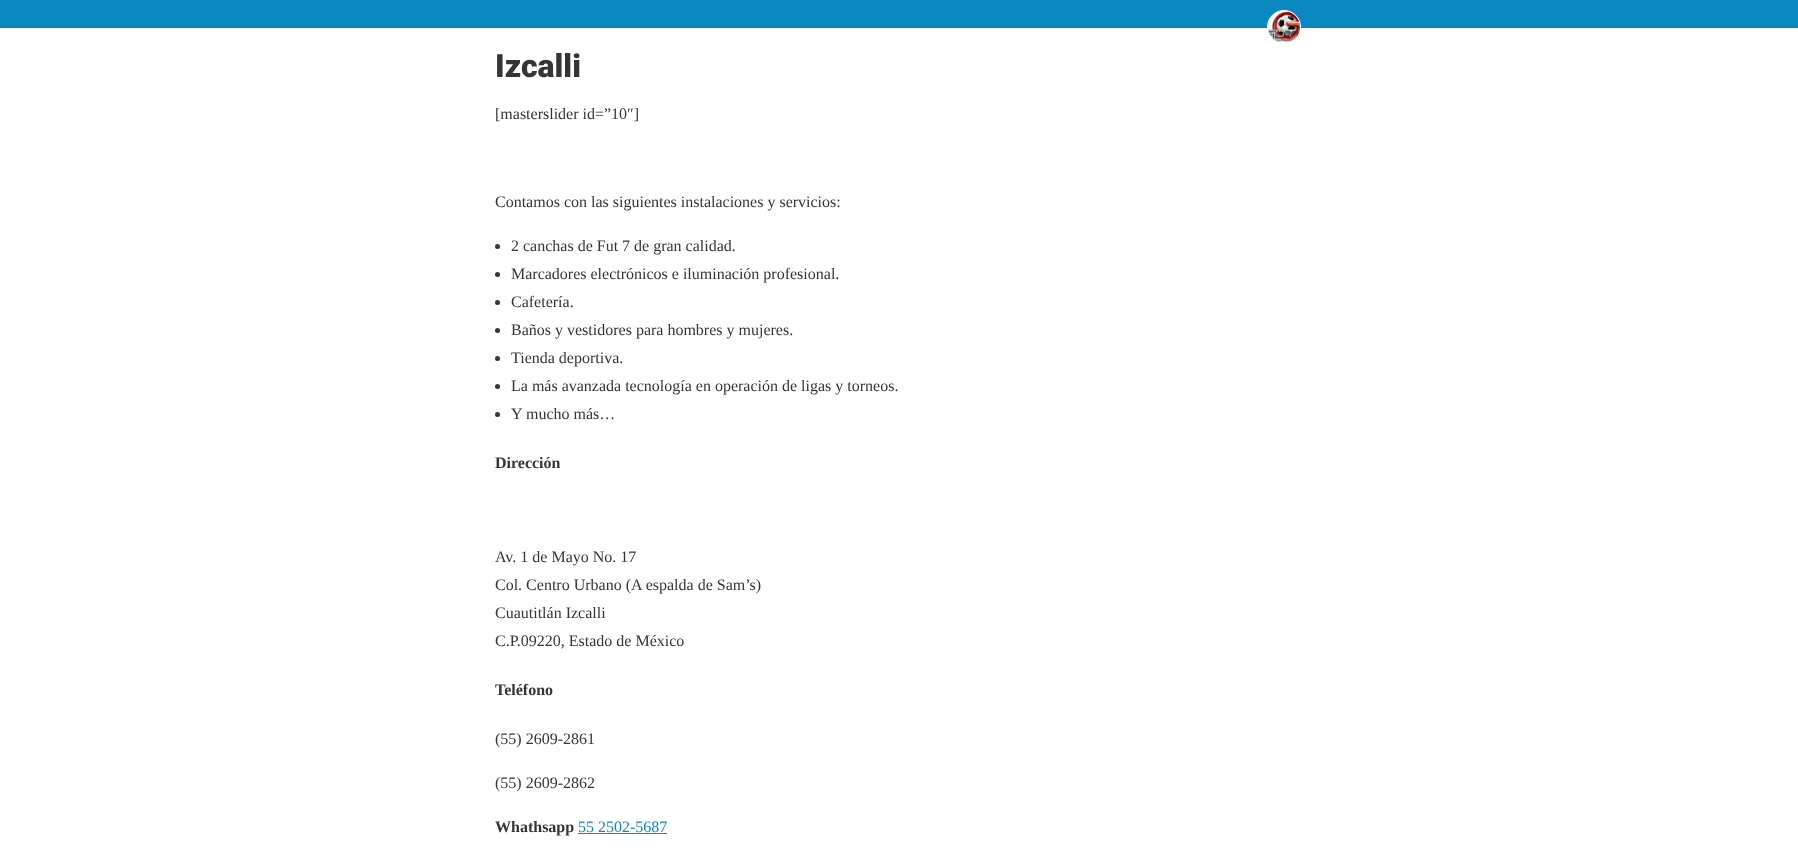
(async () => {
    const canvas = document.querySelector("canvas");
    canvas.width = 1798;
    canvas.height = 850;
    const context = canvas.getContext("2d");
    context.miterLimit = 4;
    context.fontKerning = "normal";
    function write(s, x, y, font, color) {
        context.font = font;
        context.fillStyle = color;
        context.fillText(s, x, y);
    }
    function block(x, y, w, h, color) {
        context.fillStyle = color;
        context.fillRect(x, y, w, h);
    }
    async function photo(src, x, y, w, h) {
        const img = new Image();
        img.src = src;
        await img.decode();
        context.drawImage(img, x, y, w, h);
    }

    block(0, 0, 1798, 850, "rgb(255, 255, 255)");
    block(0, 0, 1798, 28, "rgb(10, 137, 192)");
    context.fillStyle = "rgb(255, 255, 255)";
    context.beginPath();
    context.arc(1284, 27, 16.5, 0, Math.PI * 2);
    context.fill();
    context.strokeStyle = "rgb(255, 255, 255)";
    context.stroke();
    await photo("media/1.png", 1268, 11, 32, 31);
    write("Izcalli", 495, 77, "900 32px Roboto", "rgb(53, 53, 53)");
    write("[masterslider id=”10″]", 495, 119, "16px Liberation Serif", "rgb(53, 53, 53)");
    write("Contamos con las siguientes instalaciones y servicios:", 495, 207, "16px Liberation Serif", "rgb(53, 53, 53)");
    context.beginPath();
    context.arc(497.5, 246.5, 2.5, 0, Math.PI * 2);
    context.fill();
    write("2 canchas de Fut 7 de gran calidad.", 511, 251, "16px Liberation Serif", "rgb(53, 53, 53)");
    context.beginPath();
    context.arc(497.5, 274.5, 2.5, 0, Math.PI * 2);
    context.fill();
    write("Marcadores electrónicos e iluminación profesional.", 511, 279, "16px Liberation Serif", "rgb(53, 53, 53)");
    context.beginPath();
    context.arc(497.5, 302.5, 2.5, 0, Math.PI * 2);
    context.fill();
    write("Cafetería.", 511, 307, "16px Liberation Serif", "rgb(53, 53, 53)");
    context.beginPath();
    context.arc(497.5, 330.5, 2.5, 0, Math.PI * 2);
    context.fill();
    write("Baños y vestidores para hombres y mujeres.", 511, 335, "16px Liberation Serif", "rgb(53, 53, 53)");
    context.beginPath();
    context.arc(497.5, 358.5, 2.5, 0, Math.PI * 2);
    context.fill();
    write("Tienda deportiva.", 511, 363, "16px Liberation Serif", "rgb(53, 53, 53)");
    context.beginPath();
    context.arc(497.5, 386.5, 2.5, 0, Math.PI * 2);
    context.fill();
    write("La más avanzada tecnología en operación de ligas y torneos.", 511, 391, "16px Liberation Serif", "rgb(53, 53, 53)");
    context.beginPath();
    context.arc(497.5, 414.5, 2.5, 0, Math.PI * 2);
    context.fill();
    write("Y mucho más…", 511, 419, "16px Liberation Serif", "rgb(53, 53, 53)");
    write("Dirección", 495, 468, "bold 16px Liberation Serif", "rgb(53, 53, 53)");
    write("Av. 1 de Mayo No. 17", 495, 562, "16px Liberation Serif", "rgb(53, 53, 53)");
    write("Col. Centro Urbano (A espalda de Sam’s)", 495, 590, "16px Liberation Serif", "rgb(53, 53, 53)");
    write("Cuautitlán Izcalli", 495, 618, "16px Liberation Serif", "rgb(53, 53, 53)");
    write("C.P.09220, Estado de México", 495, 646, "16px Liberation Serif", "rgb(53, 53, 53)");
    write("Teléfono", 495, 695, "bold 16px Liberation Serif", "rgb(53, 53, 53)");
    write("(55) 2609-2861", 495, 744, "16px Liberation Serif", "rgb(53, 53, 53)");
    write("(55) 2609-2862", 495, 788, "16px Liberation Serif", "rgb(53, 53, 53)");
    write("Whathsapp", 495, 832, "bold 16px Liberation Serif", "rgb(53, 53, 53)");
    write("55 2502-5687", 578, 832, "16px Liberation Serif", "rgb(10, 137, 192)");
    block(578, 833, 89, 1, "rgb(10, 137, 192)");
})();
